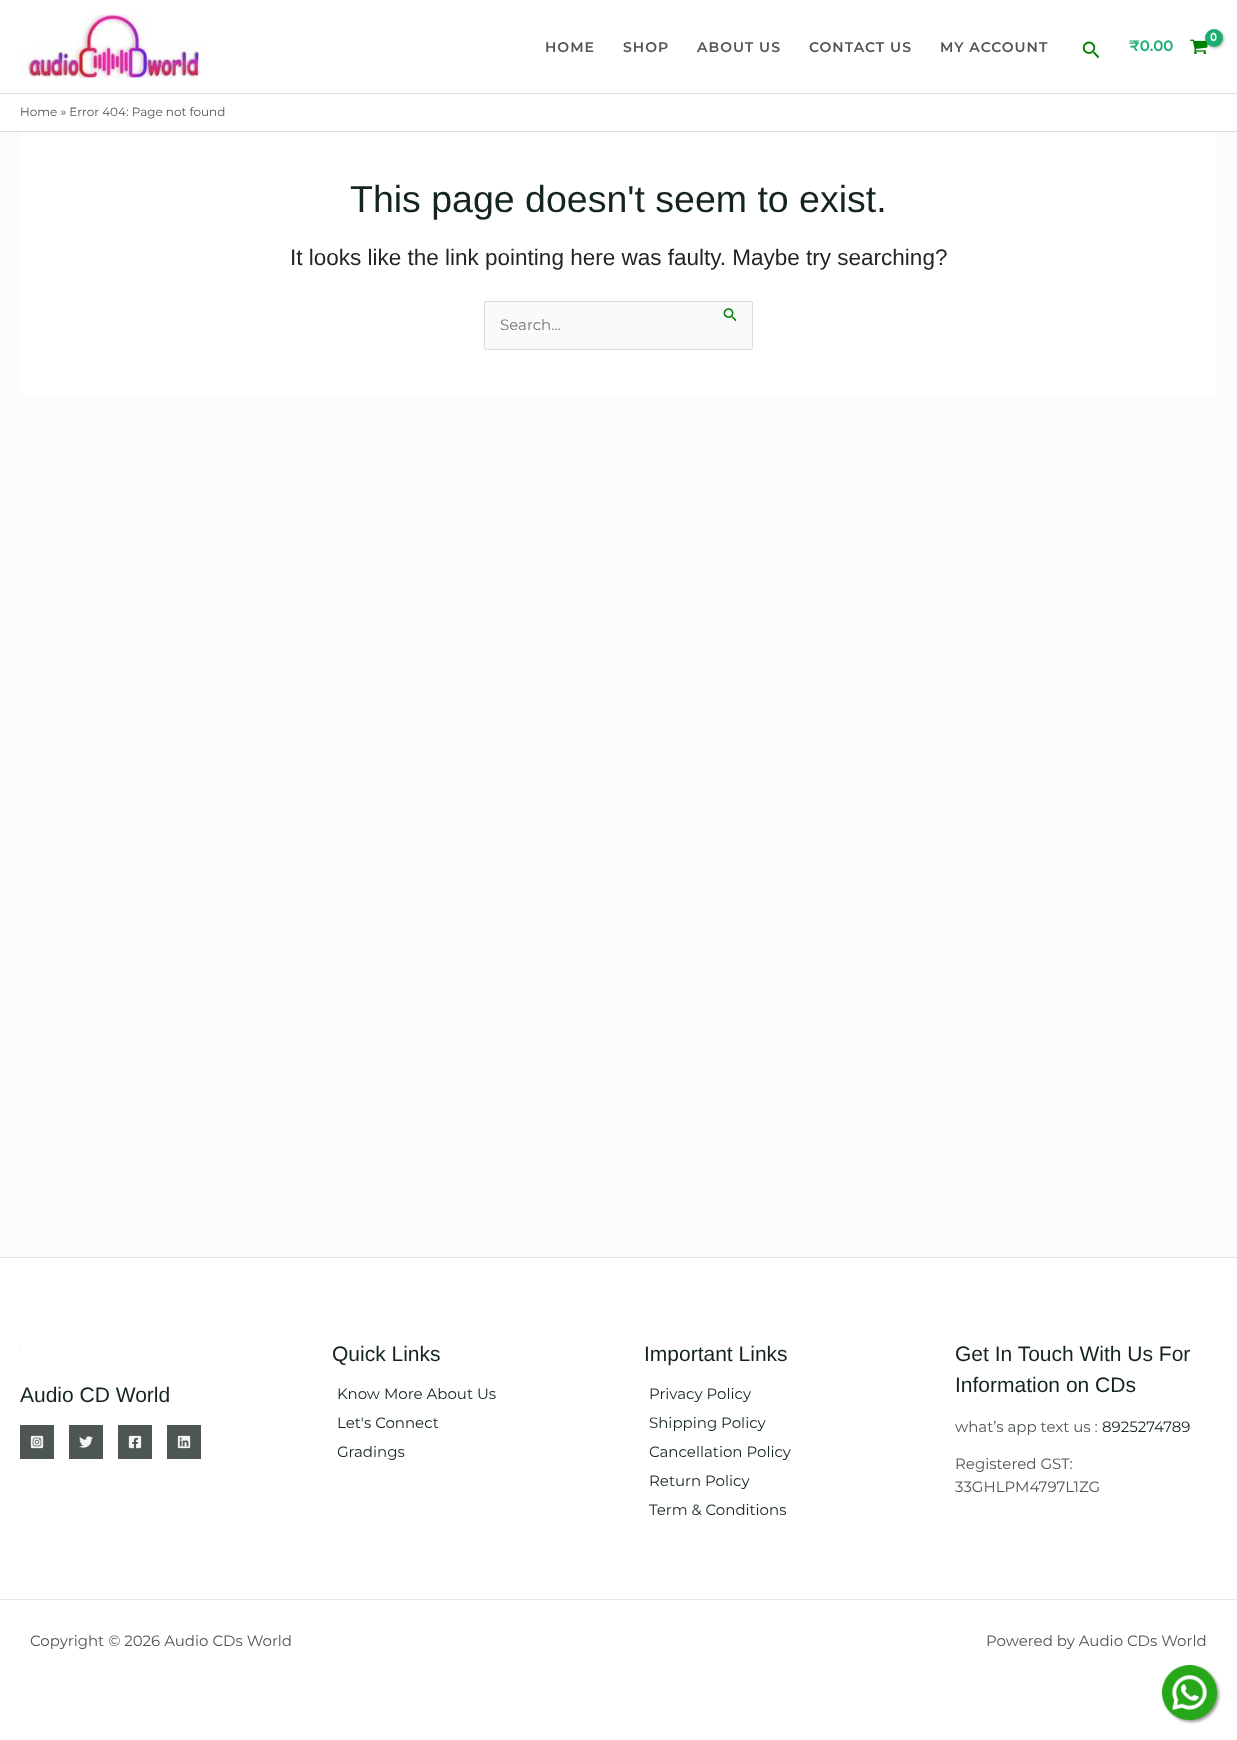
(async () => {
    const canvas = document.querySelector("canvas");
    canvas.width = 1237;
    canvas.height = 1740;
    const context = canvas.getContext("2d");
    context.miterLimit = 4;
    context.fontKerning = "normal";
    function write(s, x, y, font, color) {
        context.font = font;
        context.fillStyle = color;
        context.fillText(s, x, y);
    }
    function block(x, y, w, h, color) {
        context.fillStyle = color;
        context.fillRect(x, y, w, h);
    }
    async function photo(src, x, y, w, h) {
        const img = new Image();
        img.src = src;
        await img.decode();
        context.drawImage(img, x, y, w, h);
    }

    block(0, 0, 1237, 1740, "rgb(255, 255, 255)");
    block(0, 93, 1237, 1, "rgb(221, 221, 221)");
    await photo("media/1.png", 20, 15, 188, 63);
    context.letterSpacing = "1px";
    write("HOME", 545, 52, "600 14px Montserrat", "rgb(78, 86, 82)");
    write("SHOP", 623, 52, "600 14px Montserrat", "rgb(78, 86, 82)");
    write("ABOUT US", 697, 52, "600 14px Montserrat", "rgb(78, 86, 82)");
    write("CONTACT US", 809, 52, "600 14px Montserrat", "rgb(78, 86, 82)");
    write("MY ACCOUNT", 940, 52, "600 14px Montserrat", "rgb(78, 86, 82)");
    await photo("media/2.png", 1082, 41, 17, 17);
    await photo("media/3.png", 1190, 39, 18, 15);
    context.fillStyle = "rgba(0, 0, 0, 0.3)";
    context.filter = "blur(1.5px)";
    context.beginPath();
    context.roundRect(1206, 30, 18, 18, 9);
    context.fill();
    context.filter = "none";
    context.fillStyle = "rgb(27, 174, 112)";
    context.beginPath();
    context.arc(1214, 38, 9, 0, Math.PI * 2);
    context.fill();
    context.letterSpacing = "0px";
    write("0", 1210, 41, "600 11px Poppins", "rgb(255, 255, 255)");
    write("₹0.00", 1129, 51, "600 15px Montserrat", "rgb(27, 174, 112)");
    block(0, 131, 1237, 1, "rgb(221, 221, 221)");
    write("Home » Error 404: Page not found", 20, 116, "12px Montserrat", "rgb(78, 86, 82)");
    block(0, 132, 1237, 1125, "rgb(251, 251, 251)");
    block(20, 132, 1197, 263, "rgb(255, 255, 255)");
    write("This page doesn't seem to exist.", 350, 212, "37.5px Liberation Sans", "rgb(20, 38, 28)");
    write("It looks like the link pointing here was faulty. Maybe try searching?", 290, 265, "22.5px Liberation Sans", "rgb(33, 37, 41)");
    context.fillStyle = "rgb(250, 250, 250)";
    context.beginPath();
    context.roundRect(484.5, 301.5, 268, 48, 1.5);
    context.fill();
    context.strokeStyle = "rgb(221, 221, 221)";
    context.stroke();
    await photo("media/4.png", 723, 308, 13, 14);
    write("Search...", 500, 330, "15px Montserrat", "rgb(117, 117, 117)");
    block(0, 1257, 1237, 1, "rgb(230, 230, 230)");
    block(20, 1349, 1, 1, "rgb(193, 228, 160)");
    write("Audio CD World", 20, 1402, "21px Liberation Sans", "rgb(20, 38, 28)");
    block(20, 1425, 34, 34, "rgb(78, 86, 82)");
    await photo("media/5.png", 30, 1435, 14, 14);
    block(69, 1425, 34, 34, "rgb(78, 86, 82)");
    await photo("media/6.png", 79, 1436, 14, 12);
    block(118, 1425, 34, 34, "rgb(78, 86, 82)");
    await photo("media/7.png", 128, 1435, 14, 14);
    block(167, 1425, 34, 34, "rgb(78, 86, 82)");
    await photo("media/8.png", 177, 1435, 14, 14);
    write("Quick Links", 332, 1361, "21px Liberation Sans", "rgb(20, 38, 28)");
    write("Know More About Us", 337, 1399, "15px Montserrat", "rgb(20, 38, 28)");
    write("Let's Connect", 337, 1428, "15px Montserrat", "rgb(20, 38, 28)");
    write("Gradings", 337, 1457, "15px Montserrat", "rgb(20, 38, 28)");
    write("Important Links", 644, 1361, "21px Liberation Sans", "rgb(20, 38, 28)");
    write("Privacy Policy", 649, 1399, "15px Montserrat", "rgb(20, 38, 28)");
    write("Shipping Policy", 649, 1428, "15px Montserrat", "rgb(20, 38, 28)");
    write("Cancellation Policy", 649, 1457, "15px Montserrat", "rgb(20, 38, 28)");
    write("Return Policy", 649, 1486, "15px Montserrat", "rgb(20, 38, 28)");
    write("Term & Conditions", 649, 1515, "15px Montserrat", "rgb(20, 38, 28)");
    write("Get In Touch With Us For", 955, 1361, "21px Liberation Sans", "rgb(20, 38, 28)");
    write("Information on CDs", 955, 1392, "21px Liberation Sans", "rgb(20, 38, 28)");
    write("what’s app text us :", 955, 1432, "15px Montserrat", "rgb(78, 86, 82)");
    write("8925274789", 1102, 1432, "15px Montserrat", "rgb(20, 38, 28)");
    write("Registered GST:", 955, 1469, "15px Montserrat", "rgb(78, 86, 82)");
    write("33GHLPM4797L1ZG", 955, 1492, "15px Montserrat", "rgb(78, 86, 82)");
    block(0, 1599, 1237, 1, "rgb(234, 234, 234)");
    write("Copyright © 2026 Audio CDs World", 30, 1646, "15px Montserrat", "rgb(78, 86, 82)");
    write("Powered by Audio CDs World", 986, 1646, "15px Montserrat", "rgb(78, 86, 82)");
    context.fillStyle = "rgb(153, 153, 153)";
    context.filter = "blur(1.5px)";
    context.beginPath();
    context.roundRect(1164, 1667, 55, 55, 27.5);
    context.fill();
    context.filter = "none";
    await photo("media/9.png", 1162, 1665, 55, 55);
})();
